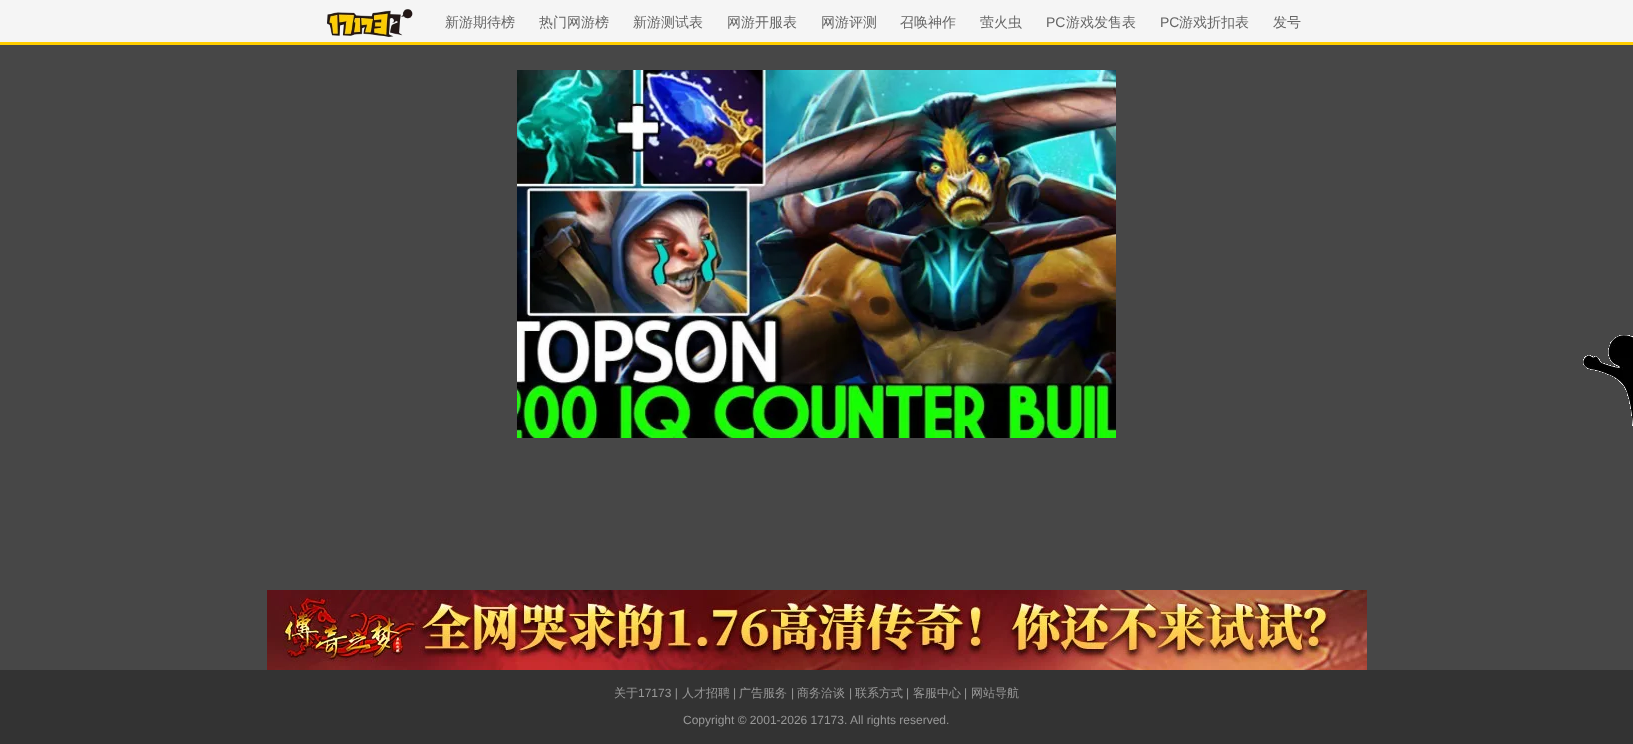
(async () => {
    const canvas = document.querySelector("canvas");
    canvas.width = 1633;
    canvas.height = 744;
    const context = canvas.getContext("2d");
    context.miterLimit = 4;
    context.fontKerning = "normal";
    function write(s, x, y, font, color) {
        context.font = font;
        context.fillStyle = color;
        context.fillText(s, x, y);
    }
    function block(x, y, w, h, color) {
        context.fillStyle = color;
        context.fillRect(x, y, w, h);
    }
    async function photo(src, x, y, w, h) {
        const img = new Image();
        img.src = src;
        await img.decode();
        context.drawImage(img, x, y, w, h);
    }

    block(0, 0, 1633, 744, "rgb(71, 71, 71)");
    block(0, 0, 1633, 42, "rgb(245, 245, 245)");
    block(0, 42, 1633, 3, "rgb(255, 205, 0)");
    await photo("media/1.png", 327, 9, 86, 28);
    write("新游期待榜", 445, 27, "500 14px WenQuanYi Zen Hei", "rgb(102, 102, 102)");
    write("热门网游榜", 539, 27, "500 14px WenQuanYi Zen Hei", "rgb(102, 102, 102)");
    write("新游测试表", 633, 27, "500 14px WenQuanYi Zen Hei", "rgb(102, 102, 102)");
    write("网游开服表", 727, 27, "500 14px WenQuanYi Zen Hei", "rgb(102, 102, 102)");
    write("网游评测", 821, 27, "500 14px WenQuanYi Zen Hei", "rgb(102, 102, 102)");
    write("召唤神作", 900, 27, "500 14px WenQuanYi Zen Hei", "rgb(102, 102, 102)");
    write("萤火虫", 980, 27, "500 14px WenQuanYi Zen Hei", "rgb(102, 102, 102)");
    write("PC", 1046, 27, "14px Liberation Sans", "rgb(102, 102, 102)");
    write("游戏发售表", 1066, 27, "500 14px WenQuanYi Zen Hei", "rgb(102, 102, 102)");
    write("PC", 1160, 27, "14px Liberation Sans", "rgb(102, 102, 102)");
    write("游戏折扣表", 1179, 27, "500 14px WenQuanYi Zen Hei", "rgb(102, 102, 102)");
    write("发号", 1273, 27, "500 14px WenQuanYi Zen Hei", "rgb(102, 102, 102)");
    await photo("media/2.png", 517, 70, 599, 368);
    await photo("media/3.png", 267, 590, 1100, 80);
    await photo("media/4.png", 1583, 335, 50, 91);
    block(0, 670, 1633, 74, "rgb(51, 51, 51)");
    write("关于", 614, 697, "500 12px WenQuanYi Zen Hei", "rgb(153, 153, 153)");
    write("17173 |", 638, 697, "12px Liberation Sans", "rgb(153, 153, 153)");
    write("人才招聘", 682, 697, "500 12px WenQuanYi Zen Hei", "rgb(153, 153, 153)");
    write("|", 733, 697, "12px Liberation Sans", "rgb(153, 153, 153)");
    write("广告服务", 739, 697, "500 12px WenQuanYi Zen Hei", "rgb(153, 153, 153)");
    write("|", 791, 697, "12px Liberation Sans", "rgb(153, 153, 153)");
    write("商务洽谈", 797, 697, "500 12px WenQuanYi Zen Hei", "rgb(153, 153, 153)");
    write("|", 849, 697, "12px Liberation Sans", "rgb(153, 153, 153)");
    write("联系方式", 855, 697, "500 12px WenQuanYi Zen Hei", "rgb(153, 153, 153)");
    write("|", 906, 697, "12px Liberation Sans", "rgb(153, 153, 153)");
    write("客服中心", 913, 697, "500 12px WenQuanYi Zen Hei", "rgb(153, 153, 153)");
    write("|", 964, 697, "12px Liberation Sans", "rgb(153, 153, 153)");
    write("网站导航", 971, 697, "500 12px WenQuanYi Zen Hei", "rgb(153, 153, 153)");
    write("Copyright © 2001-2026 17173. All rights reserved.", 683, 724, "12px Liberation Sans", "rgb(153, 153, 153)");
})();
